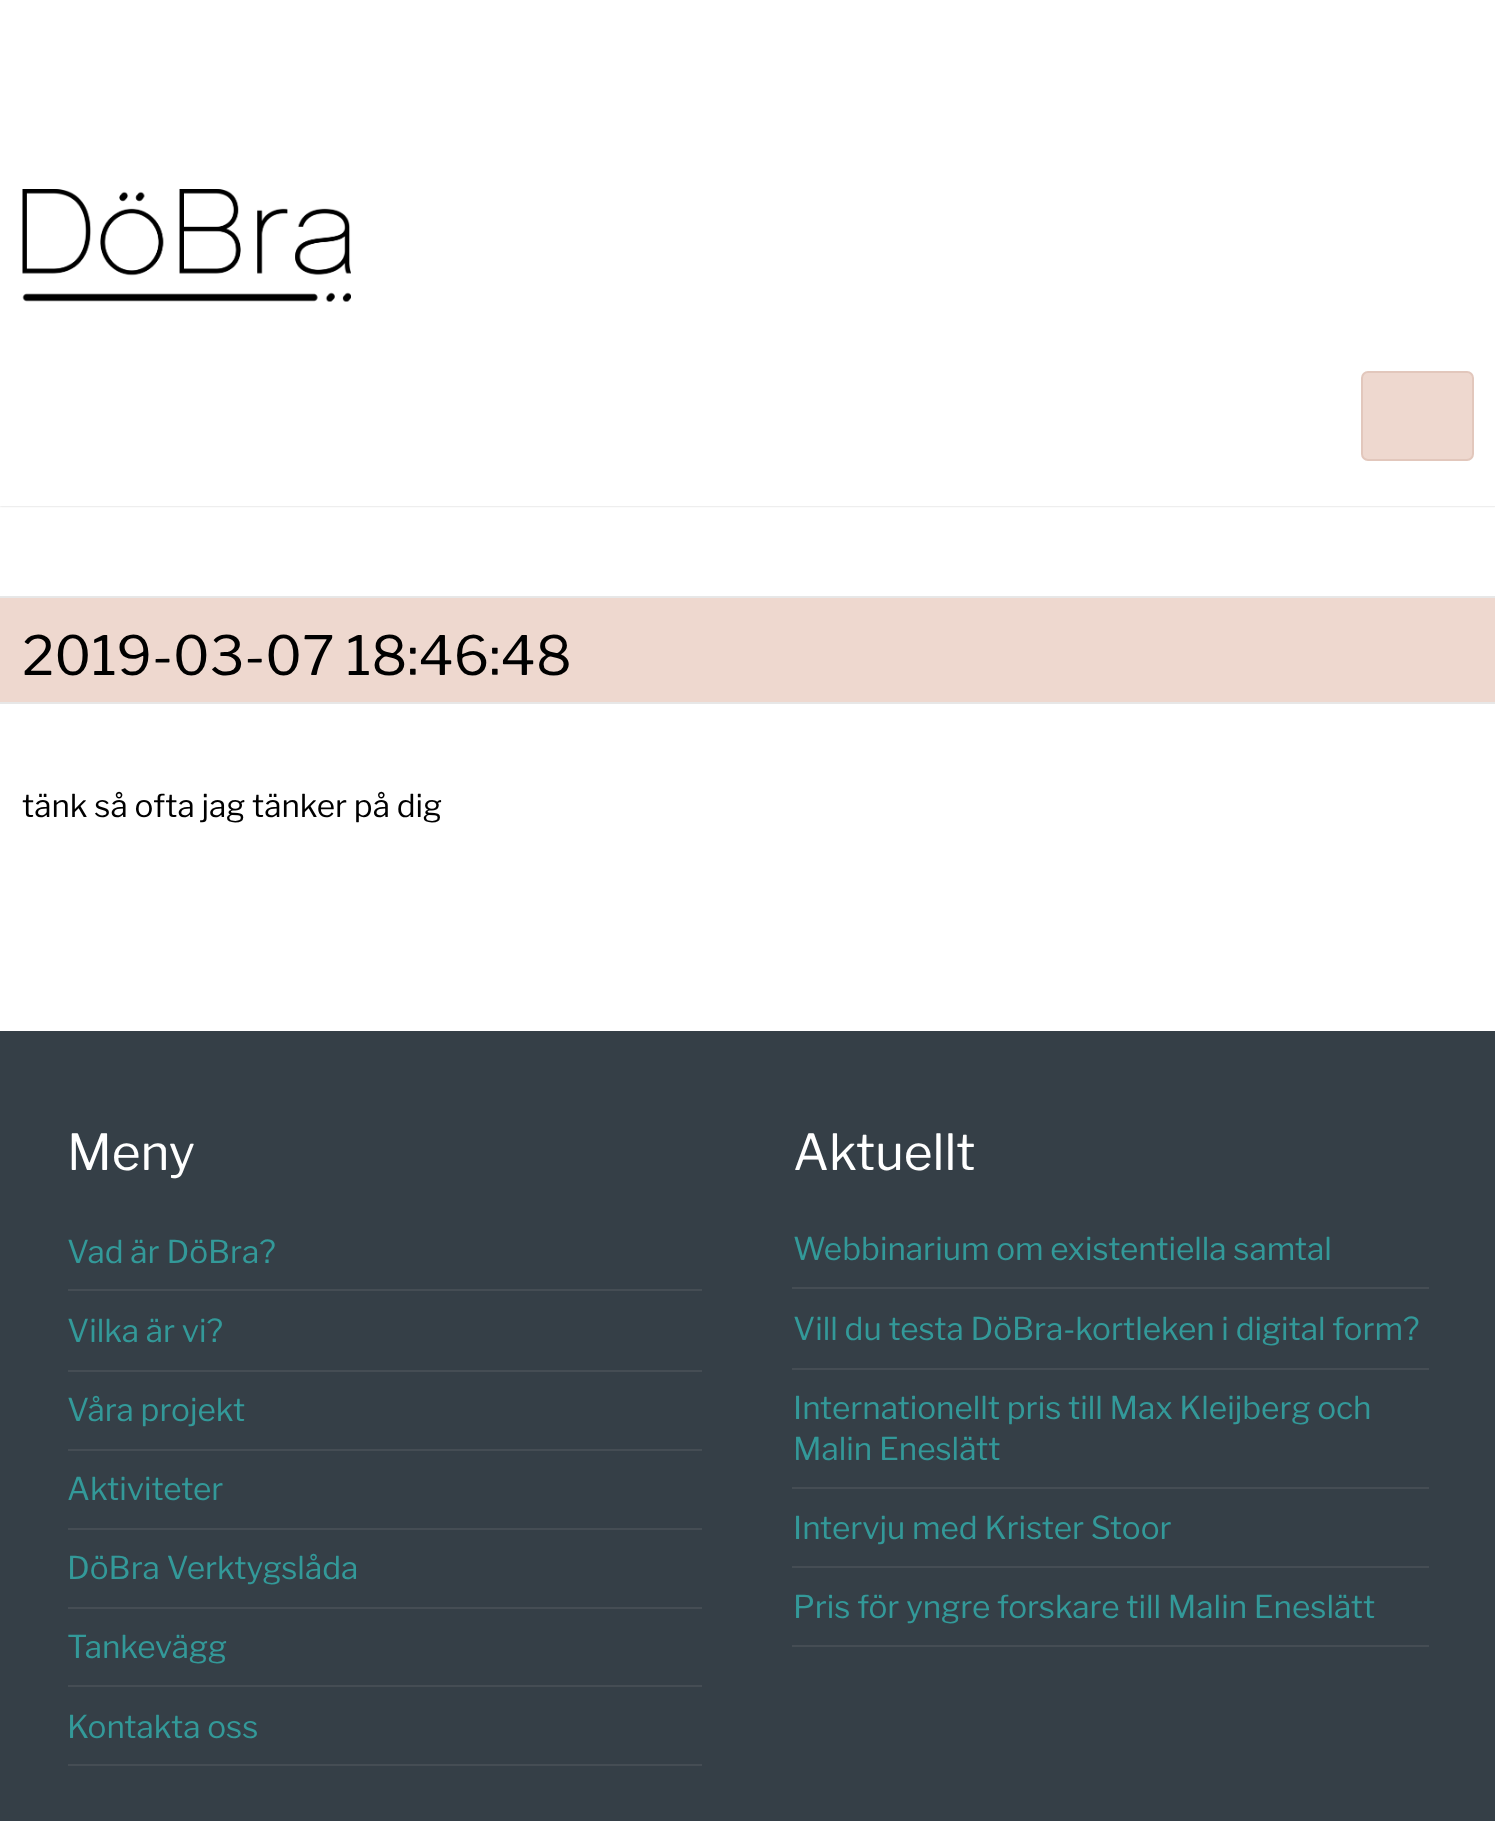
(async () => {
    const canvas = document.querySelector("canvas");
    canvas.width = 1495;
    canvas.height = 1821;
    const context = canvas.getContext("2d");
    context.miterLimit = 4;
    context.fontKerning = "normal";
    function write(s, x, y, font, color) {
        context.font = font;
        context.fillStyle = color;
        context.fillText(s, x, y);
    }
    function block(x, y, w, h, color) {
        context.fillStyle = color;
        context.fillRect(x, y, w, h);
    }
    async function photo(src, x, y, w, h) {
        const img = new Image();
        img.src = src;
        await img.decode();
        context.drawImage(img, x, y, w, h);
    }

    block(0, 0, 1495, 1821, "rgb(255, 255, 255)");
    context.save();
    context.beginPath();
    context.rect(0, 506, 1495, 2);
    context.clip();
    context.fillStyle = "rgb(204, 204, 204)";
    context.filter = "blur(1px)";
    context.beginPath();
    context.rect(0, 0, 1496, 506);
    context.fill();
    context.filter = "none";
    context.restore();
    await photo("media/1.png", 22, 189, 329, 113);
    context.fillStyle = "rgb(238, 216, 207)";
    context.beginPath();
    context.roundRect(1362, 372, 111, 88, 6);
    context.fill();
    context.strokeStyle = "rgb(226, 199, 188)";
    context.lineWidth = 2;
    context.stroke();
    block(0, 598, 1495, 104, "rgb(238, 216, 207)");
    block(0, 596, 1495, 2, "rgb(231, 231, 231)");
    block(0, 702, 1495, 2, "rgb(231, 231, 231)");
    write("2019-03-07 18:46:48", 22, 675, "100 54px Libre Franklin", "rgb(0, 0, 0)");
    write("tänk så ofta jag tänker på dig", 22, 817, "100 31.5px Libre Franklin", "rgb(0, 0, 0)");
    block(0, 1031, 1495, 790, "rgb(53, 63, 71)");
    write("Meny", 67, 1170, "100 49.5px Libre Franklin", "rgb(255, 255, 255)");
    block(68, 1289, 634, 2, "rgb(69, 77, 84)");
    write("Vad är DöBra?", 67, 1263, "100 31.5px Libre Franklin", "rgb(51, 153, 153)");
    block(68, 1370, 634, 2, "rgb(69, 77, 84)");
    write("Vilka är vi?", 67, 1342, "100 31.5px Libre Franklin", "rgb(51, 153, 153)");
    block(68, 1449, 634, 2, "rgb(69, 77, 84)");
    write("Våra projekt", 67, 1421, "100 31.5px Libre Franklin", "rgb(51, 153, 153)");
    block(68, 1528, 634, 2, "rgb(69, 77, 84)");
    write("Aktiviteter", 67, 1500, "100 31.5px Libre Franklin", "rgb(51, 153, 153)");
    block(68, 1607, 634, 2, "rgb(69, 77, 84)");
    write("DöBra Verktygslåda", 67, 1579, "100 31.5px Libre Franklin", "rgb(51, 153, 153)");
    block(68, 1685, 634, 2, "rgb(69, 77, 84)");
    write("Tankevägg", 67, 1658, "100 31.5px Libre Franklin", "rgb(51, 153, 153)");
    block(68, 1764, 634, 2, "rgb(69, 77, 84)");
    write("Kontakta oss", 67, 1738, "100 31.5px Libre Franklin", "rgb(51, 153, 153)");
    write("Aktuellt", 793, 1170, "100 49.5px Libre Franklin", "rgb(255, 255, 255)");
    block(792, 1287, 637, 2, "rgb(69, 77, 84)");
    write("Webbinarium om existentiella samtal", 793, 1260, "100 31.5px Libre Franklin", "rgb(51, 153, 153)");
    block(792, 1368, 637, 2, "rgb(69, 77, 84)");
    write("Vill du testa DöBra-kortleken i digital form?", 793, 1340, "100 31.5px Libre Franklin", "rgb(51, 153, 153)");
    block(792, 1487, 637, 2, "rgb(69, 77, 84)");
    write("Internationellt pris till Max Kleijberg och", 793, 1419, "100 31.5px Libre Franklin", "rgb(51, 153, 153)");
    write("Malin Eneslätt", 793, 1460, "100 31.5px Libre Franklin", "rgb(51, 153, 153)");
    block(792, 1566, 637, 2, "rgb(69, 77, 84)");
    write("Intervju med Krister Stoor", 793, 1539, "100 31.5px Libre Franklin", "rgb(51, 153, 153)");
    block(792, 1645, 637, 2, "rgb(69, 77, 84)");
    write("Pris för yngre forskare till Malin Eneslätt", 793, 1618, "100 31.5px Libre Franklin", "rgb(51, 153, 153)");
})();
